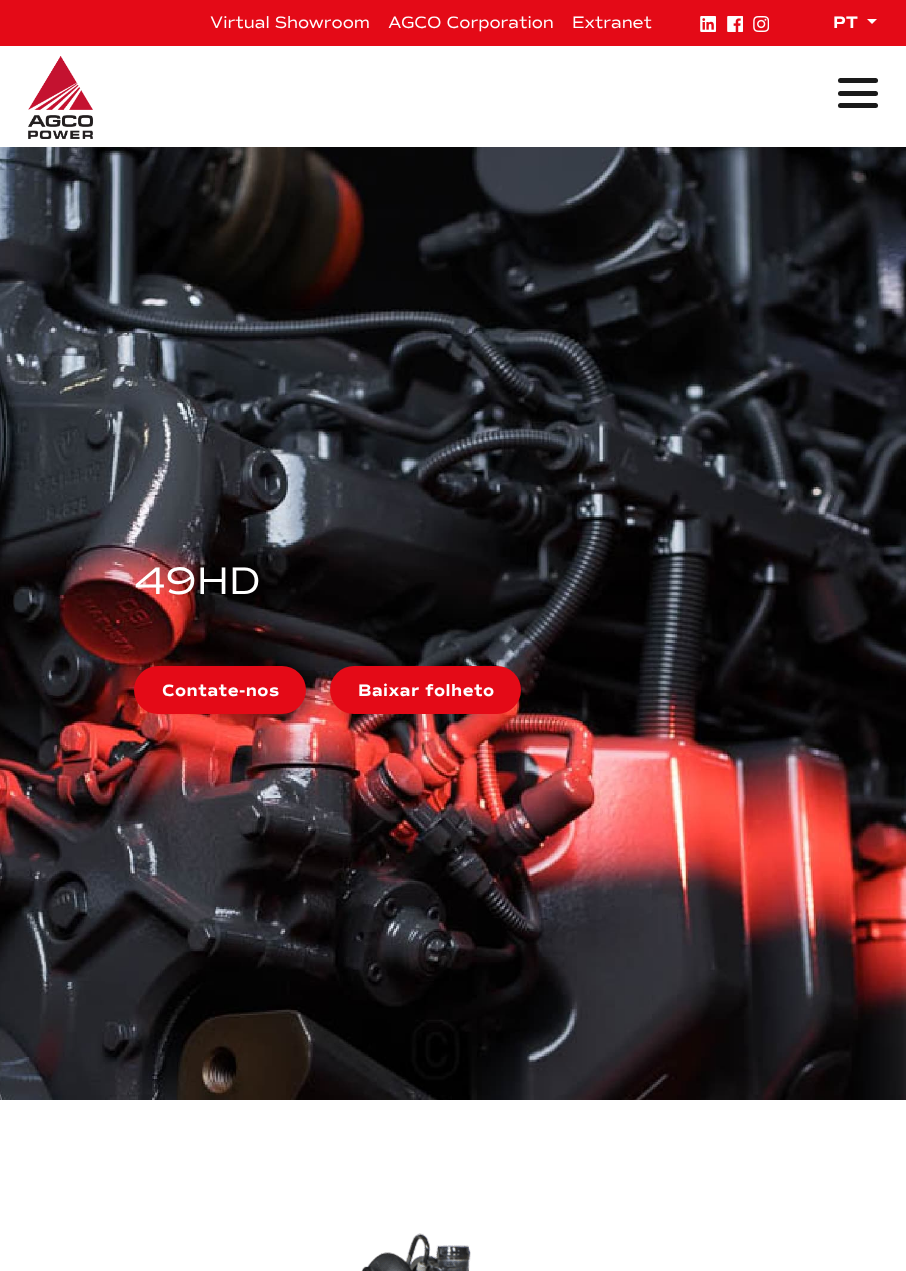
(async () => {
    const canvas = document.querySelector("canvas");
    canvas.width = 906;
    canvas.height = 1271;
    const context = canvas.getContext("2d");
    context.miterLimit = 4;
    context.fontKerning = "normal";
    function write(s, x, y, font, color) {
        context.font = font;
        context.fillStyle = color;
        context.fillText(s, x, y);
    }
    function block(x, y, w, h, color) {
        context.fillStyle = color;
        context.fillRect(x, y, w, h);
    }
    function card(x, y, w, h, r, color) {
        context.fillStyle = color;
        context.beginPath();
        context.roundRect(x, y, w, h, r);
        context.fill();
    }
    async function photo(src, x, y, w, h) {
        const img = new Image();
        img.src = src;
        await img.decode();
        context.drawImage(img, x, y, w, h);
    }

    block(0, 0, 906, 1271, "rgb(255, 255, 255)");
    block(0, 0, 906, 46, "rgb(228, 10, 23)");
    write("Virtual Showroom", 210, 28, "16.75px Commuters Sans", "rgb(255, 255, 255)");
    write("AGCO Corporation", 388, 28, "16.75px Commuters Sans", "rgb(255, 255, 255)");
    write("Extranet", 572, 28, "16.75px Commuters Sans", "rgb(255, 255, 255)");
    await photo("media/1.png", 700, 16, 16, 16);
    await photo("media/2.png", 727, 16, 16, 16);
    await photo("media/3.png", 753, 16, 16, 16);
    write("PT", 833, 28, "bold 16.75px Commuters Sans", "rgb(255, 255, 255)");
    context.beginPath();
    context.moveTo(867, 19);
    context.lineTo(877, 19);
    context.lineTo(872, 24);
    context.closePath();
    context.fill();
    await photo("media/4.png", 28, 56, 65, 83);
    card(838, 78, 40, 5, 2.5, "rgb(26, 26, 26)");
    card(838, 91, 40, 5, 2.5, "rgb(26, 26, 26)");
    card(838, 103, 40, 5, 2.5, "rgb(26, 26, 26)");
    await photo("media/5.png", 0, 147, 906, 953);
    write("49HD", 134, 594, "39px Commuters Sans", "rgb(255, 255, 255)");
    card(134, 666, 172, 48, 24, "rgb(228, 10, 23)");
    context.letterSpacing = "0.5px";
    write("Contate-nos", 162, 696, "bold 16.75px Commuters Sans", "rgb(255, 255, 255)");
    card(330, 666, 191, 48, 24, "rgb(228, 10, 23)");
    write("Baixar folheto", 358, 696, "bold 16.75px Commuters Sans", "rgb(255, 255, 255)");
    await photo("media/6.png", 361, 1233, 110, 38);
})();
